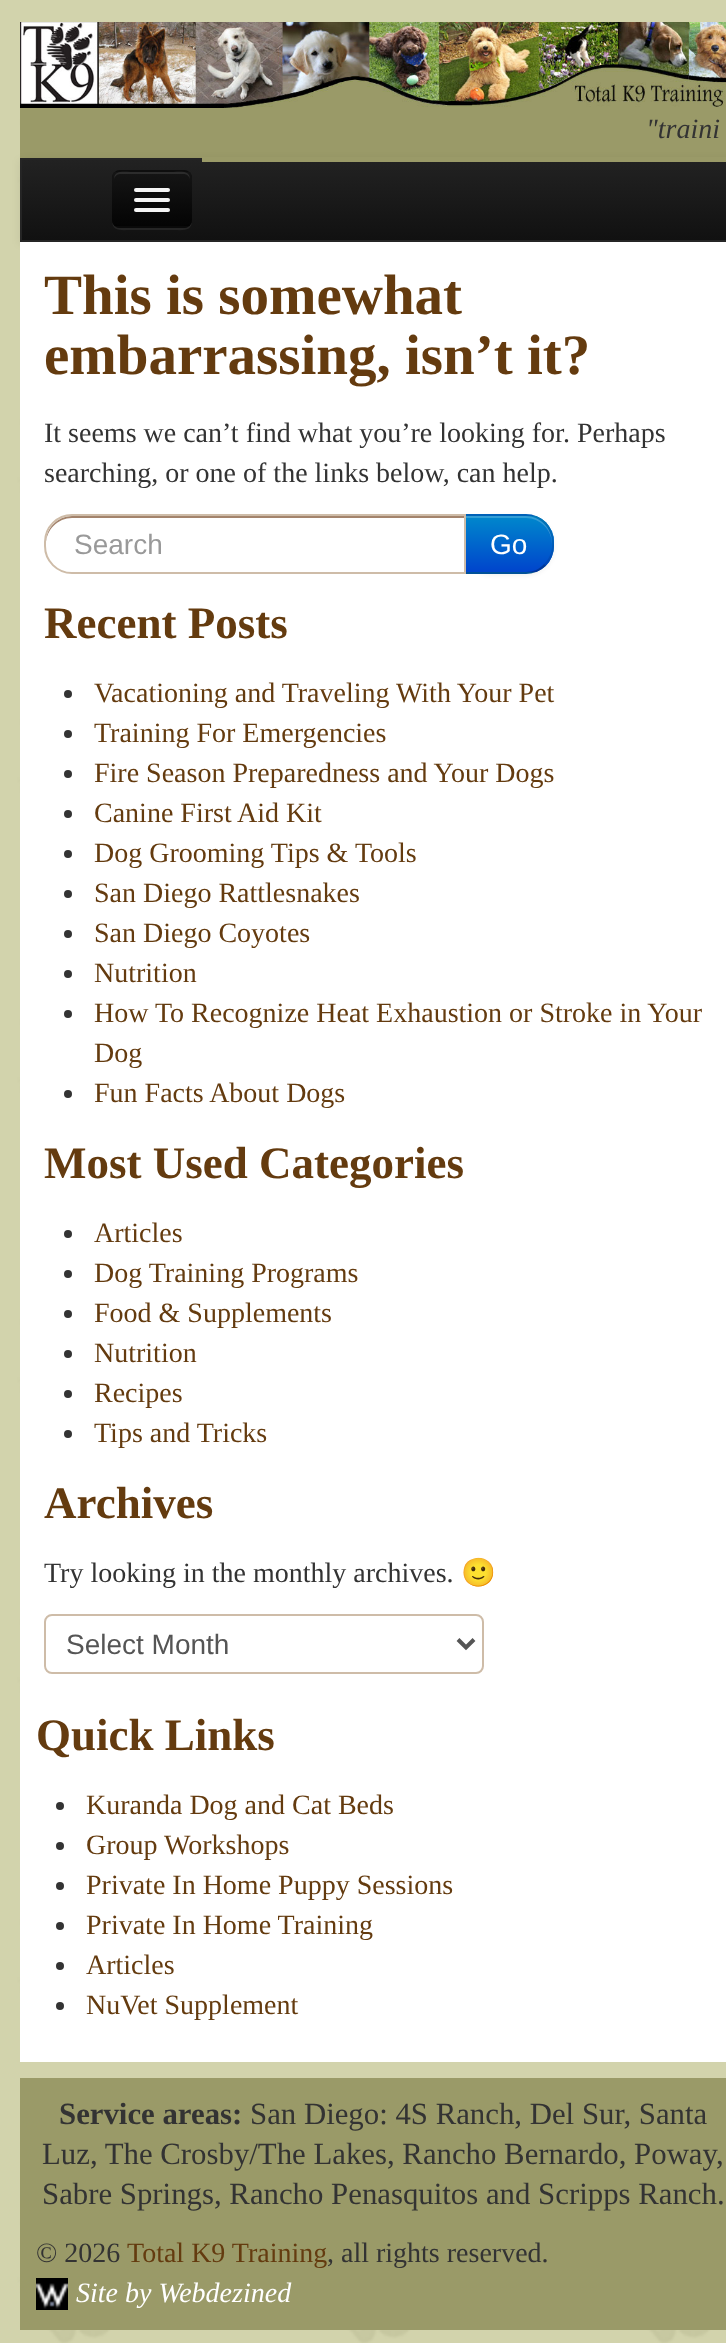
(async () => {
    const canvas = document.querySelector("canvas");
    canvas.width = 726;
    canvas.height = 2343;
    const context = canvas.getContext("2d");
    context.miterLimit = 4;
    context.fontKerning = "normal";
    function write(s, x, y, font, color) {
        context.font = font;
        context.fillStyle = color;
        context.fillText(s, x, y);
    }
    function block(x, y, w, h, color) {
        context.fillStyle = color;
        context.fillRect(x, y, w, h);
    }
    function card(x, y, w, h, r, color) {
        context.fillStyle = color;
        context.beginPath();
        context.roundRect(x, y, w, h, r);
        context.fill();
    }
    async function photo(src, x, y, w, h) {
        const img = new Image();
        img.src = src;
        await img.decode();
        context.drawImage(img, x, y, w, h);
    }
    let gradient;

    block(0, 0, 726, 2343, "rgb(255, 255, 255)");
    await photo("media/1.png", 0, 0, 726, 2343);
    await photo("media/2.png", 20, 22, 706, 86);
    block(20, 108, 706, 50, "rgb(154, 154, 104)");
    context.fillStyle = "rgba(0, 0, 0, 0.07)";
    context.filter = "blur(4px)";
    context.beginPath();
    context.rect(20, 160, 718, 84);
    context.fill();
    context.filter = "none";
    gradient = context.createLinearGradient(383, 160, 383, 240);
    gradient.addColorStop(0, "rgb(34, 34, 34)");
    gradient.addColorStop(1, "rgb(17, 17, 17)");
    context.fillStyle = gradient;
    context.fillRect(22, 160, 704, 80);
    context.strokeStyle = "rgb(37, 37, 37)";
    context.lineWidth = 2;
    context.strokeRect(21, 159, 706, 82);
    block(202, 157, 524, 5, "rgb(154, 154, 104)");
    write("\"traini", 646, 138, "italic 28px Liberation Serif", "rgb(51, 51, 51)");
    context.fillStyle = "rgb(37, 37, 37)";
    context.beginPath();
    context.moveTo(112, 220);
    context.bezierCurveTo(112, 232, 121, 230, 131, 230);
    context.lineTo(173, 230);
    context.bezierCurveTo(183, 230, 192, 232, 192, 220);
    context.bezierCurveTo(192, 224, 188, 228, 184, 228);
    context.lineTo(120, 228);
    context.bezierCurveTo(116, 228, 112, 224, 112, 220);
    context.closePath();
    context.fill();
    card(112, 170, 80, 58, 8, "rgb(14, 14, 14)");
    context.save();
    context.beginPath();
    context.roundRect(112, 170, 80, 58, 8);
    context.clip();
    gradient = context.createLinearGradient(152, 172, 152, 226);
    gradient.addColorStop(0, "rgb(21, 21, 21)");
    gradient.addColorStop(1, "rgb(4, 4, 4)");
    context.fillStyle = gradient;
    context.fillRect(112, 172, 80, 54);
    context.restore();
    context.fillStyle = "rgb(44, 44, 44)";
    context.beginPath();
    context.moveTo(120, 174);
    context.lineTo(184, 174);
    context.bezierCurveTo(187, 174, 190, 177, 190, 180);
    context.bezierCurveTo(190, 170, 182, 172, 173, 172);
    context.lineTo(131, 172);
    context.bezierCurveTo(122, 172, 114, 170, 114, 180);
    context.bezierCurveTo(114, 177, 117, 174, 120, 174);
    context.closePath();
    context.fill();
    context.beginPath();
    context.moveTo(189, 225);
    context.bezierCurveTo(187.5, 226.5, 186, 227, 184, 227);
    context.lineTo(120, 227);
    context.bezierCurveTo(118, 227, 116.5, 226.5, 115, 225);
    context.strokeStyle = "rgba(0, 0, 0, 0.25)";
    context.stroke();
    context.fillStyle = "rgb(11, 11, 11)";
    context.beginPath();
    context.moveTo(134.5, 191);
    context.bezierCurveTo(132, 195, 141, 194, 141.5, 194);
    context.lineTo(162.5, 194);
    context.bezierCurveTo(163, 194, 172, 195, 169.5, 191);
    context.bezierCurveTo(169.5, 191.5, 168.5, 192, 168, 192);
    context.lineTo(136, 192);
    context.bezierCurveTo(135.5, 192, 134.5, 191.5, 134.5, 191);
    context.closePath();
    context.fill();
    card(134, 188, 36, 4, 2, "rgb(245, 245, 245)");
    context.fillStyle = "rgb(8, 8, 8)";
    context.beginPath();
    context.moveTo(134.5, 201);
    context.bezierCurveTo(132, 205, 141, 204, 141.5, 204);
    context.lineTo(162.5, 204);
    context.bezierCurveTo(163, 204, 172, 205, 169.5, 201);
    context.bezierCurveTo(169.5, 201.5, 168.5, 202, 168, 202);
    context.lineTo(136, 202);
    context.bezierCurveTo(135.5, 202, 134.5, 201.5, 134.5, 201);
    context.closePath();
    context.fill();
    card(134, 198, 36, 4, 2, "rgb(245, 245, 245)");
    card(134, 208, 36, 4, 2, "rgb(245, 245, 245)");
    block(20, 242, 706, 1820, "rgb(255, 255, 255)");
    write("This is somewhat", 44, 314, "bold 57px Liberation Serif", "rgb(100, 59, 15)");
    write("embarrassing, isn’t it?", 44, 374, "bold 57px Liberation Serif", "rgb(100, 59, 15)");
    write("It seems we can’t find what you’re looking for. Perhaps", 44, 442, "28px Liberation Serif", "rgb(51, 51, 51)");
    write("searching, or one of the links below, can help.", 44, 482, "28px Liberation Serif", "rgb(51, 51, 51)");
    context.fillStyle = "rgba(0, 0, 0, 0.05)";
    context.filter = "blur(2px)";
    context.beginPath();
    context.roundRect(464, 516, 90, 60, 28);
    context.fill();
    context.filter = "none";
    context.fillStyle = "rgb(0, 109, 204)";
    context.beginPath();
    context.roundRect(464, 514, 90, 60, [0, 28, 28, 0]);
    context.fill();
    context.save();
    context.beginPath();
    context.roundRect(464, 514, 90, 60, [0, 28, 28, 0]);
    context.clip();
    gradient = context.createLinearGradient(509, 516, 509, 572);
    gradient.addColorStop(0, "rgb(0, 136, 204)");
    gradient.addColorStop(1, "rgb(0, 68, 204)");
    context.fillStyle = gradient;
    context.fillRect(466, 516, 88, 56);
    context.restore();
    context.fillStyle = "rgba(255, 255, 255, 0.2)";
    context.beginPath();
    context.moveTo(466, 518);
    context.lineTo(526, 518);
    context.bezierCurveTo(540, 518, 552, 530, 552, 544);
    context.lineTo(552, 542);
    context.bezierCurveTo(552, 528, 540, 516, 526, 516);
    context.lineTo(466, 516);
    context.closePath();
    context.fill();
    context.fillStyle = "rgba(0, 0, 0, 0.1)";
    context.beginPath();
    context.moveTo(464, 514);
    context.lineTo(466, 516);
    context.lineTo(526, 516);
    context.bezierCurveTo(533, 516, 540, 519, 544, 524);
    context.lineTo(546, 522);
    context.bezierCurveTo(540, 517, 534, 514, 526, 514);
    context.closePath();
    context.fill();
    context.beginPath();
    context.moveTo(554, 546);
    context.bezierCurveTo(554, 537, 552, 529, 546, 522);
    context.lineTo(544, 524);
    context.bezierCurveTo(555, 534, 555, 554, 544, 564);
    context.lineTo(546, 566);
    context.bezierCurveTo(551, 560, 554, 554, 554, 546);
    context.closePath();
    context.fill();
    context.fillStyle = "rgba(0, 0, 0, 0.25)";
    context.beginPath();
    context.moveTo(526, 574);
    context.bezierCurveTo(534, 574, 540, 571, 546, 566);
    context.lineTo(544, 564);
    context.bezierCurveTo(540, 569, 533, 572, 526, 572);
    context.lineTo(466, 572);
    context.lineTo(464, 574);
    context.closePath();
    context.fill();
    context.fillStyle = "rgb(255, 255, 255)";
    context.beginPath();
    context.roundRect(44, 514, 422, 60, [28, 0, 0, 28]);
    context.fill();
    context.fillStyle = "rgb(163, 131, 108)";
    context.beginPath();
    context.moveTo(72, 518);
    context.lineTo(464, 518);
    context.lineTo(464, 516);
    context.lineTo(72, 516);
    context.bezierCurveTo(58, 516, 46, 528, 46, 542);
    context.lineTo(46, 544);
    context.bezierCurveTo(46, 530, 58, 518, 72, 518);
    context.closePath();
    context.fill();
    context.beginPath();
    context.roundRect(45, 515, 420, 58, [27, 0, 0, 27]);
    context.strokeStyle = "rgb(206, 188, 168)";
    context.stroke();
    write("Search", 74, 554, "28px Liberation Sans", "rgb(153, 153, 153)");
    write("Go", 490, 554, "28px Liberation Sans", "rgb(255, 255, 255)");
    write("Recent Posts", 44, 638, "bold 45px Liberation Serif", "rgb(100, 59, 15)");
    context.fillStyle = "rgb(51, 51, 51)";
    context.beginPath();
    context.arc(68, 694, 4, 0, Math.PI * 2);
    context.fill();
    write("Vacationing and Traveling With Your Pet", 94, 702, "28px Liberation Serif", "rgb(100, 59, 15)");
    context.fillStyle = "rgb(51, 51, 51)";
    context.beginPath();
    context.arc(68, 734, 4, 0, Math.PI * 2);
    context.fill();
    write("Training For Emergencies", 94, 742, "28px Liberation Serif", "rgb(100, 59, 15)");
    context.fillStyle = "rgb(51, 51, 51)";
    context.beginPath();
    context.arc(68, 774, 4, 0, Math.PI * 2);
    context.fill();
    write("Fire Season Preparedness and Your Dogs", 94, 782, "28px Liberation Serif", "rgb(100, 59, 15)");
    context.fillStyle = "rgb(51, 51, 51)";
    context.beginPath();
    context.arc(68, 814, 4, 0, Math.PI * 2);
    context.fill();
    write("Canine First Aid Kit", 94, 822, "28px Liberation Serif", "rgb(100, 59, 15)");
    context.fillStyle = "rgb(51, 51, 51)";
    context.beginPath();
    context.arc(68, 854, 4, 0, Math.PI * 2);
    context.fill();
    write("Dog Grooming Tips & Tools", 94, 862, "28px Liberation Serif", "rgb(100, 59, 15)");
    context.fillStyle = "rgb(51, 51, 51)";
    context.beginPath();
    context.arc(68, 894, 4, 0, Math.PI * 2);
    context.fill();
    write("San Diego Rattlesnakes", 94, 902, "28px Liberation Serif", "rgb(100, 59, 15)");
    context.fillStyle = "rgb(51, 51, 51)";
    context.beginPath();
    context.arc(68, 934, 4, 0, Math.PI * 2);
    context.fill();
    write("San Diego Coyotes", 94, 942, "28px Liberation Serif", "rgb(100, 59, 15)");
    context.fillStyle = "rgb(51, 51, 51)";
    context.beginPath();
    context.arc(68, 974, 4, 0, Math.PI * 2);
    context.fill();
    write("Nutrition", 94, 982, "28px Liberation Serif", "rgb(100, 59, 15)");
    context.fillStyle = "rgb(51, 51, 51)";
    context.beginPath();
    context.arc(68, 1014, 4, 0, Math.PI * 2);
    context.fill();
    write("How To Recognize Heat Exhaustion or Stroke in Your", 94, 1022, "28px Liberation Serif", "rgb(100, 59, 15)");
    write("Dog", 94, 1062, "28px Liberation Serif", "rgb(100, 59, 15)");
    context.fillStyle = "rgb(51, 51, 51)";
    context.beginPath();
    context.arc(68, 1094, 4, 0, Math.PI * 2);
    context.fill();
    write("Fun Facts About Dogs", 94, 1102, "28px Liberation Serif", "rgb(100, 59, 15)");
    write("Most Used Categories", 44, 1178, "bold 45px Liberation Serif", "rgb(100, 59, 15)");
    context.fillStyle = "rgb(51, 51, 51)";
    context.beginPath();
    context.arc(68, 1234, 4, 0, Math.PI * 2);
    context.fill();
    write("Articles", 94, 1242, "28px Liberation Serif", "rgb(100, 59, 15)");
    context.fillStyle = "rgb(51, 51, 51)";
    context.beginPath();
    context.arc(68, 1274, 4, 0, Math.PI * 2);
    context.fill();
    write("Dog Training Programs", 94, 1282, "28px Liberation Serif", "rgb(100, 59, 15)");
    context.fillStyle = "rgb(51, 51, 51)";
    context.beginPath();
    context.arc(68, 1314, 4, 0, Math.PI * 2);
    context.fill();
    write("Food & Supplements", 94, 1322, "28px Liberation Serif", "rgb(100, 59, 15)");
    context.fillStyle = "rgb(51, 51, 51)";
    context.beginPath();
    context.arc(68, 1354, 4, 0, Math.PI * 2);
    context.fill();
    write("Nutrition", 94, 1362, "28px Liberation Serif", "rgb(100, 59, 15)");
    context.fillStyle = "rgb(51, 51, 51)";
    context.beginPath();
    context.arc(68, 1394, 4, 0, Math.PI * 2);
    context.fill();
    write("Recipes", 94, 1402, "28px Liberation Serif", "rgb(100, 59, 15)");
    context.fillStyle = "rgb(51, 51, 51)";
    context.beginPath();
    context.arc(68, 1434, 4, 0, Math.PI * 2);
    context.fill();
    write("Tips and Tricks", 94, 1442, "28px Liberation Serif", "rgb(100, 59, 15)");
    write("Archives", 44, 1518, "bold 45px Liberation Serif", "rgb(100, 59, 15)");
    write("Try looking in the monthly archives.", 44, 1582, "28px Liberation Serif", "rgb(51, 51, 51)");
    write("🙂", 461, 1582, "28px Noto Color Emoji", "rgb(51, 51, 51)");
    context.beginPath();
    context.roundRect(45, 1615, 438, 58, 7);
    context.stroke();
    context.beginPath();
    context.moveTo(458, 1639.5);
    context.lineTo(466, 1647.5);
    context.lineTo(474, 1639.5);
    context.strokeStyle = "rgb(85, 85, 85)";
    context.lineWidth = 4;
    context.stroke();
    write("Select Month", 66, 1654, "28px Liberation Sans", "rgb(85, 85, 85)");
    write("Quick Links", 36, 1750, "bold 45px Liberation Serif", "rgb(100, 59, 15)");
    context.fillStyle = "rgb(51, 51, 51)";
    context.beginPath();
    context.arc(60, 1806, 4, 0, Math.PI * 2);
    context.fill();
    write("Kuranda Dog and Cat Beds", 86, 1814, "28px Liberation Serif", "rgb(100, 59, 15)");
    context.fillStyle = "rgb(51, 51, 51)";
    context.beginPath();
    context.arc(60, 1846, 4, 0, Math.PI * 2);
    context.fill();
    write("Group Workshops", 86, 1854, "28px Liberation Serif", "rgb(100, 59, 15)");
    context.fillStyle = "rgb(51, 51, 51)";
    context.beginPath();
    context.arc(60, 1886, 4, 0, Math.PI * 2);
    context.fill();
    write("Private In Home Puppy Sessions", 86, 1894, "28px Liberation Serif", "rgb(100, 59, 15)");
    context.fillStyle = "rgb(51, 51, 51)";
    context.beginPath();
    context.arc(60, 1926, 4, 0, Math.PI * 2);
    context.fill();
    write("Private In Home Training", 86, 1934, "28px Liberation Serif", "rgb(100, 59, 15)");
    context.fillStyle = "rgb(51, 51, 51)";
    context.beginPath();
    context.arc(60, 1966, 4, 0, Math.PI * 2);
    context.fill();
    write("Articles", 86, 1974, "28px Liberation Serif", "rgb(100, 59, 15)");
    context.fillStyle = "rgb(51, 51, 51)";
    context.beginPath();
    context.arc(60, 2006, 4, 0, Math.PI * 2);
    context.fill();
    write("NuVet Supplement", 86, 2014, "28px Liberation Serif", "rgb(100, 59, 15)");
    block(20, 2078, 706, 252, "rgb(154, 154, 104)");
    write("Service areas:", 59, 2124, "bold 30.8px Liberation Serif", "rgb(51, 51, 51)");
    write("San Diego: 4S Ranch, Del Sur, Santa", 250, 2124, "30.8px Liberation Serif", "rgb(51, 51, 51)");
    write("Luz, The Crosby/The Lakes, Rancho Bernardo, Poway,", 42, 2164, "30.8px Liberation Serif", "rgb(51, 51, 51)");
    write("Sabre Springs, Rancho Penasquitos and Scripps Ranch.", 42, 2204, "30.8px Liberation Serif", "rgb(51, 51, 51)");
    write("© 2026", 36, 2262, "28px Liberation Serif", "rgb(51, 51, 51)");
    write("Total K9 Training", 127, 2262, "28px Liberation Serif", "rgb(100, 59, 15)");
    write(", all rights reserved.", 327, 2262, "28px Liberation Serif", "rgb(51, 51, 51)");
    await photo("media/3.png", 36, 2278, 32, 32);
    write("Site by Webdezined", 76, 2302, "italic 28px Liberation Serif", "rgb(255, 255, 255)");
})();
